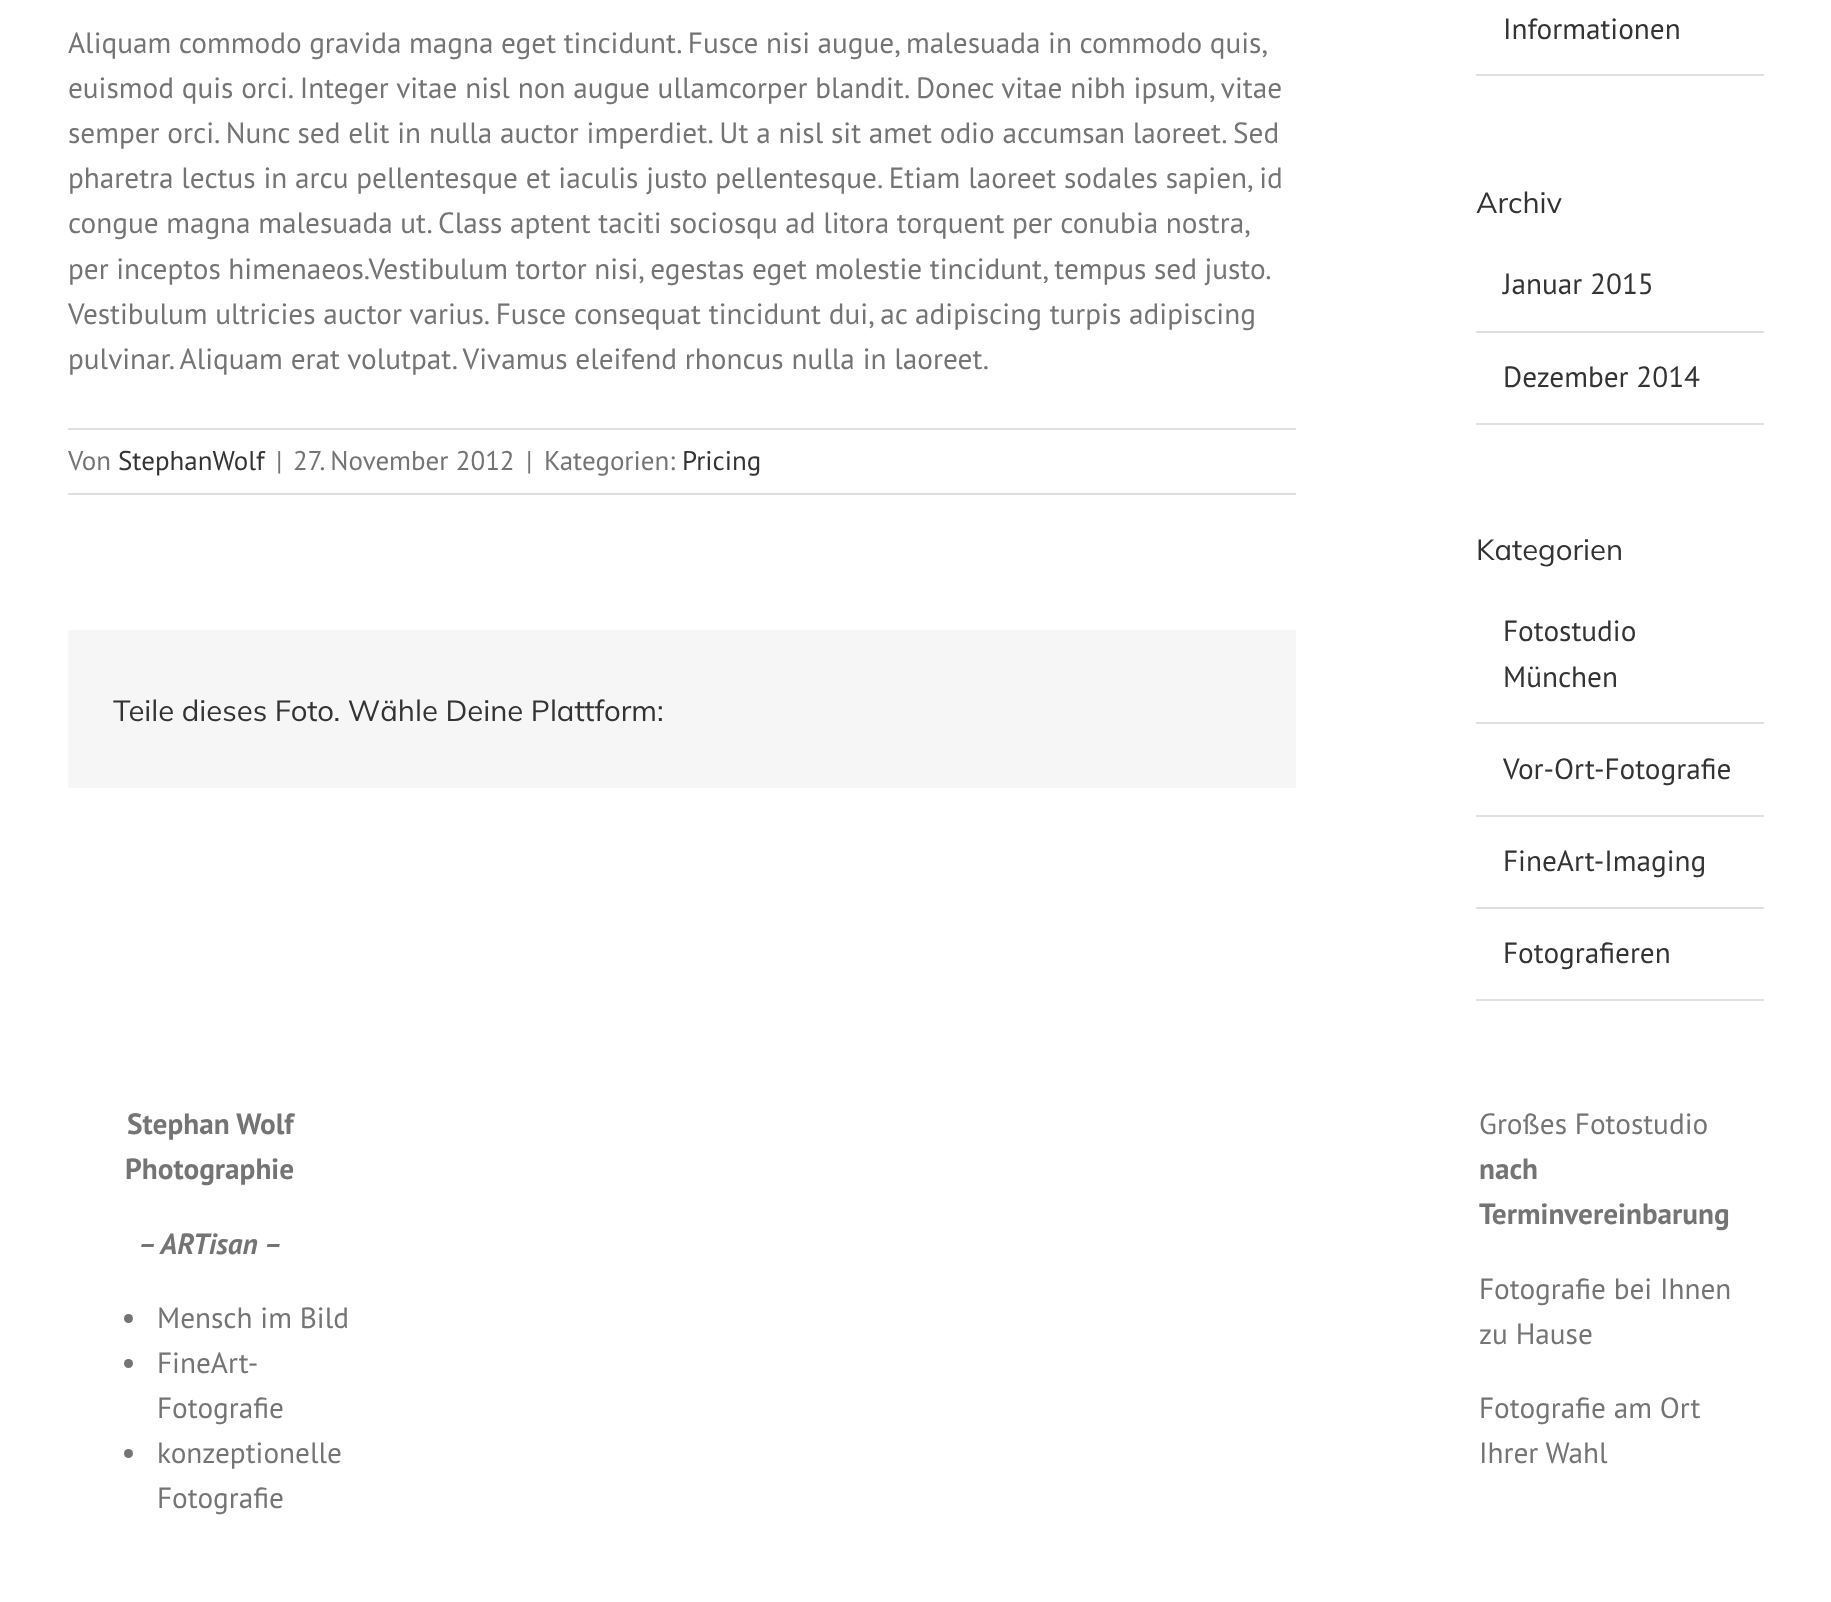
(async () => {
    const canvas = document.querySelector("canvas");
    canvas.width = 1831;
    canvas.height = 1602;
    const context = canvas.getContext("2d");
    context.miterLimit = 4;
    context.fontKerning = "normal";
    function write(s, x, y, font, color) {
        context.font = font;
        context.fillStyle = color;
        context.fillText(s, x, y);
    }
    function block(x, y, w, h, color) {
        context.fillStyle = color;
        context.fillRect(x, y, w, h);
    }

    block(0, 0, 1831, 1602, "rgb(255, 255, 255)");
    context.wordSpacing = "-0.25px";
    write("Aliquam commodo gravida magna eget tincidunt. Fusce nisi augue, malesuada in commodo quis,", 68, 53, "29.25px PT Sans", "rgb(116, 116, 116)");
    context.wordSpacing = "0px";
    write("euismod quis orci. Integer vitae nisl non augue ullamcorper blandit. Donec vitae nibh ipsum, vitae", 68, 98, "29.25px PT Sans", "rgb(116, 116, 116)");
    write("semper orci. Nunc sed elit in nulla auctor imperdiet. Ut a nisl sit amet odio accumsan laoreet. Sed", 68, 143, "29.25px PT Sans", "rgb(116, 116, 116)");
    write("pharetra lectus in arcu pellentesque et iaculis justo pellentesque. Etiam laoreet sodales sapien, id", 68, 188, "29.25px PT Sans", "rgb(116, 116, 116)");
    context.wordSpacing = "-0.2px";
    write("congue magna malesuada ut. Class aptent taciti sociosqu ad litora torquent per conubia nostra,", 68, 233, "29.25px PT Sans", "rgb(116, 116, 116)");
    context.wordSpacing = "-0.25px";
    write("per inceptos himenaeos.Vestibulum tortor nisi, egestas eget molestie tincidunt, tempus sed justo.", 68, 279, "29.25px PT Sans", "rgb(116, 116, 116)");
    context.wordSpacing = "0px";
    write("Vestibulum ultricies auctor varius. Fusce consequat tincidunt dui, ac adipiscing turpis adipiscing", 68, 324, "29.25px PT Sans", "rgb(116, 116, 116)");
    write("pulvinar. Aliquam erat volutpat. Vivamus eleifend rhoncus nulla in laoreet.", 68, 369, "29.25px PT Sans", "rgb(116, 116, 116)");
    block(68, 428, 1228, 2, "rgb(224, 222, 222)");
    block(68, 493, 1228, 2, "rgb(224, 222, 222)");
    write("Von", 68, 470, "27px PT Sans", "rgb(116, 116, 116)");
    write("StephanWolf", 118, 470, "27px PT Sans", "rgb(51, 51, 51)");
    write("|", 276, 470, "27px PT Sans", "rgb(116, 116, 116)");
    write("27. November 2012", 293, 470, "27px PT Sans", "rgb(116, 116, 116)");
    write("|", 526, 470, "27px PT Sans", "rgb(116, 116, 116)");
    write("Kategorien:", 544, 470, "27px PT Sans", "rgb(116, 116, 116)");
    write("Pricing", 682, 470, "27px PT Sans", "rgb(51, 51, 51)");
    block(68, 630, 1228, 158, "rgb(246, 246, 246)");
    write("Teile dieses Foto. Wähle Deine Plattform:", 113, 721, "200 29.25px Mulish", "rgb(51, 51, 51)");
    block(1476, 74, 288, 2, "rgb(224, 222, 222)");
    write("Informationen", 1503, 39, "29.25px PT Sans", "rgb(51, 51, 51)");
    write("Archiv", 1476, 213, "200 29.25px Mulish", "rgb(51, 51, 51)");
    block(1476, 331, 288, 2, "rgb(224, 222, 222)");
    write("Januar 2015", 1503, 294, "29.25px PT Sans", "rgb(51, 51, 51)");
    block(1476, 423, 288, 2, "rgb(224, 222, 222)");
    write("Dezember 2014", 1503, 387, "29.25px PT Sans", "rgb(51, 51, 51)");
    write("Kategorien", 1476, 560, "200 29.25px Mulish", "rgb(51, 51, 51)");
    block(1476, 722, 288, 2, "rgb(224, 222, 222)");
    write("Fotostudio", 1503, 641, "29.25px PT Sans", "rgb(51, 51, 51)");
    write("München", 1503, 687, "29.25px PT Sans", "rgb(51, 51, 51)");
    block(1476, 815, 288, 2, "rgb(224, 222, 222)");
    write("Vor-Ort-Fotografie", 1503, 779, "29.25px PT Sans", "rgb(51, 51, 51)");
    block(1476, 907, 288, 2, "rgb(224, 222, 222)");
    write("FineArt-Imaging", 1503, 871, "29.25px PT Sans", "rgb(51, 51, 51)");
    block(1476, 999, 288, 2, "rgb(224, 222, 222)");
    write("Fotografieren", 1503, 963, "29.25px PT Sans", "rgb(51, 51, 51)");
    write("Stephan Wolf", 127, 1134, "bold 29.25px PT Sans", "rgb(116, 116, 116)");
    write("Photographie", 125, 1179, "bold 29.25px PT Sans", "rgb(116, 116, 116)");
    write("– ARTisan –", 138, 1254, "italic bold 29.25px PT Sans", "rgb(116, 116, 116)");
    context.beginPath();
    context.arc(128.5, 1318.5, 4.5, 0, Math.PI * 2);
    context.fill();
    write("Mensch im Bild", 157, 1328, "29.25px PT Sans", "rgb(116, 116, 116)");
    context.beginPath();
    context.arc(128.5, 1363.5, 4.5, 0, Math.PI * 2);
    context.fill();
    write("FineArt-", 157, 1373, "29.25px PT Sans", "rgb(116, 116, 116)");
    write("Fotografie", 157, 1418, "29.25px PT Sans", "rgb(116, 116, 116)");
    context.beginPath();
    context.arc(128.5, 1453.5, 4.5, 0, Math.PI * 2);
    context.fill();
    write("konzeptionelle", 157, 1463, "29.25px PT Sans", "rgb(116, 116, 116)");
    write("Fotografie", 157, 1508, "29.25px PT Sans", "rgb(116, 116, 116)");
    write("Großes Fotostudio", 1479, 1134, "29.25px PT Sans", "rgb(116, 116, 116)");
    write("nach", 1479, 1179, "bold 29.25px PT Sans", "rgb(116, 116, 116)");
    write("Terminvereinbarung", 1479, 1224, "bold 29.25px PT Sans", "rgb(116, 116, 116)");
    write("Fotografie bei Ihnen", 1479, 1299, "29.25px PT Sans", "rgb(116, 116, 116)");
    write("zu Hause", 1479, 1344, "29.25px PT Sans", "rgb(116, 116, 116)");
    write("Fotografie am Ort", 1479, 1418, "29.25px PT Sans", "rgb(116, 116, 116)");
    write("Ihrer Wahl", 1479, 1463, "29.25px PT Sans", "rgb(116, 116, 116)");
})();
